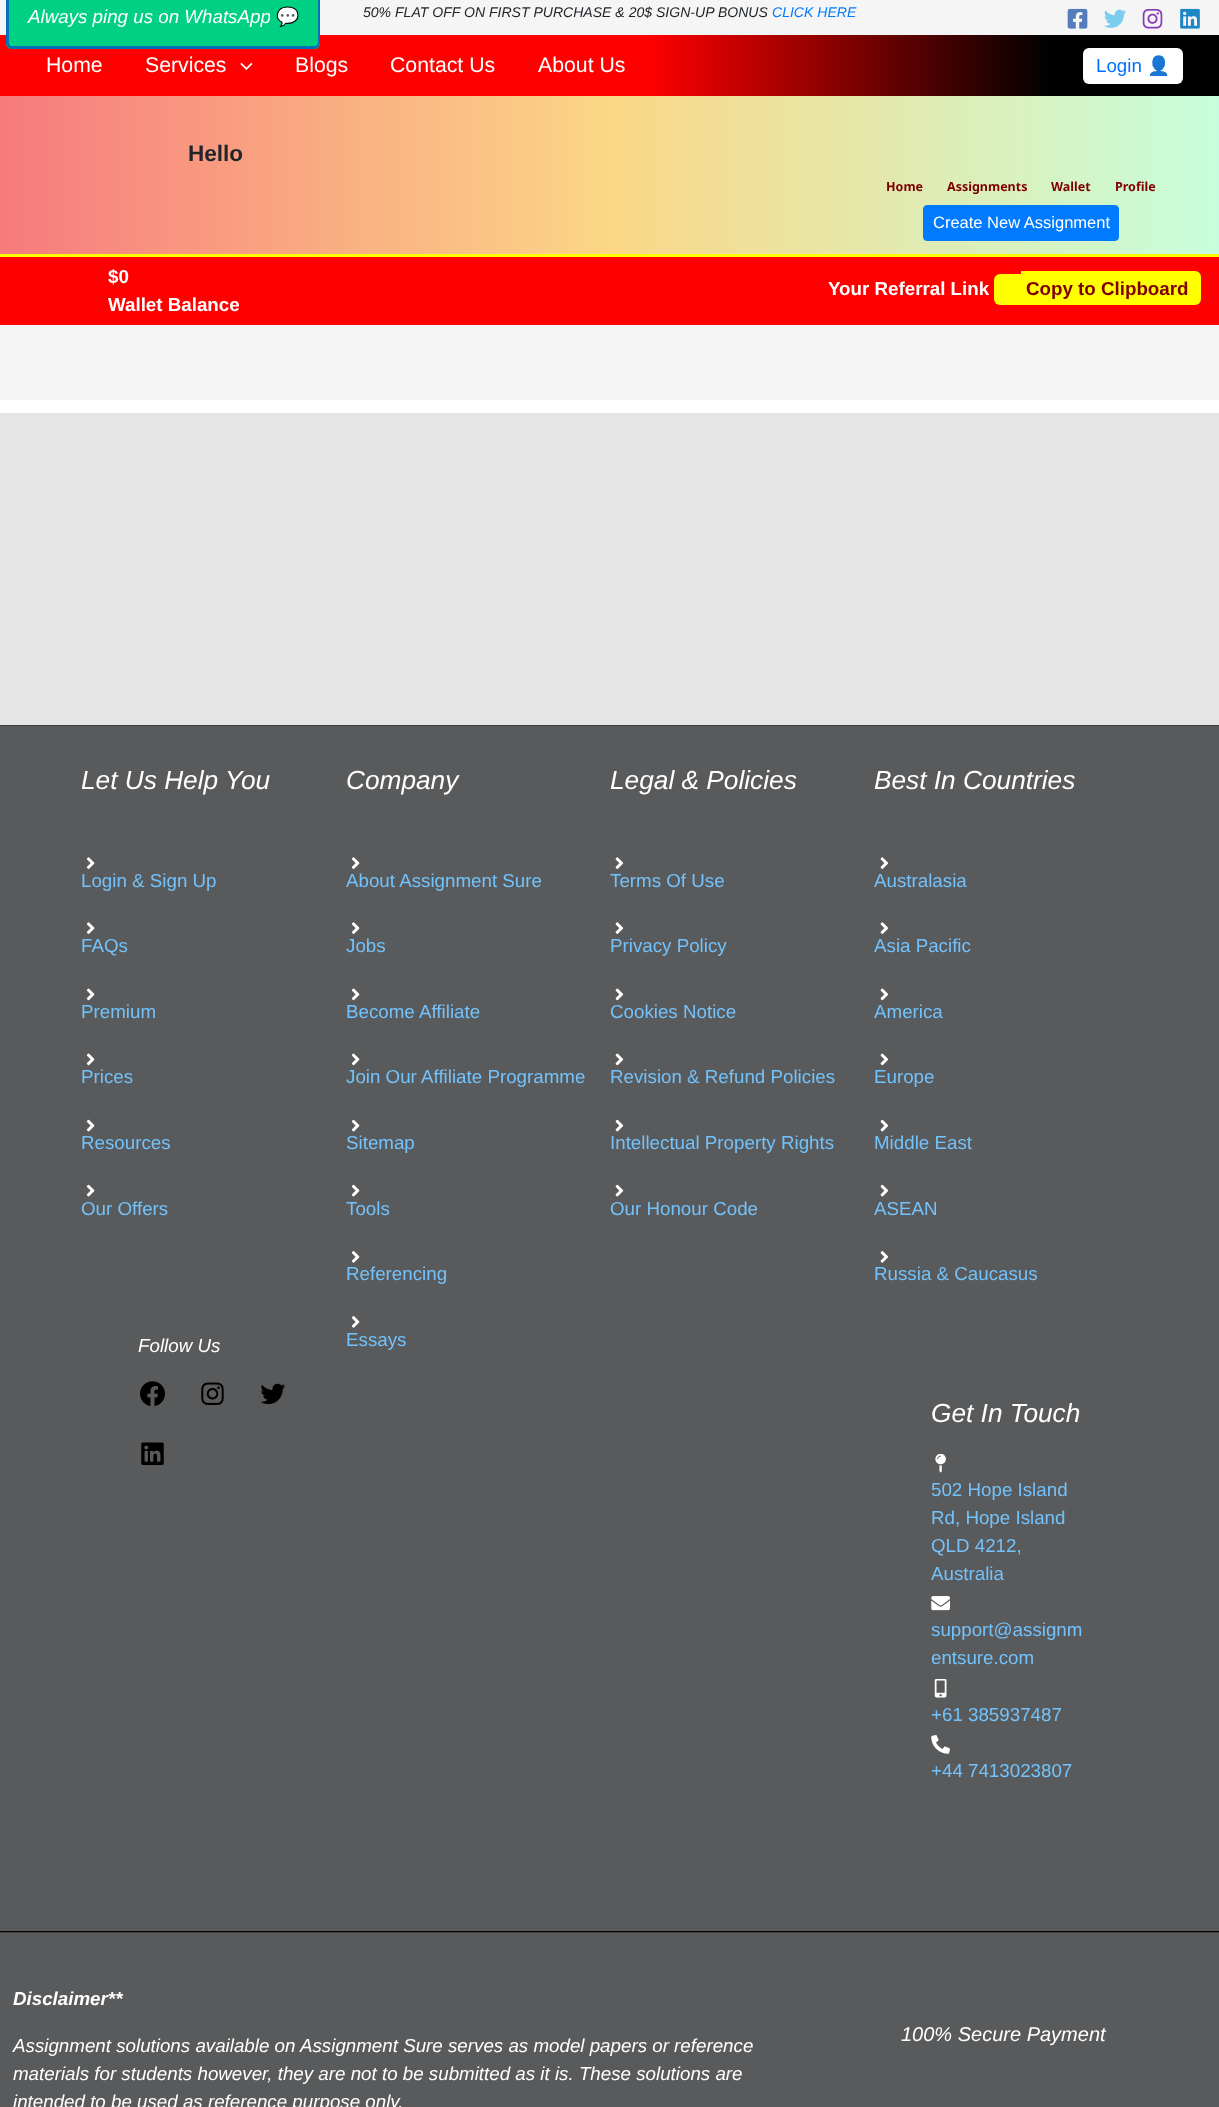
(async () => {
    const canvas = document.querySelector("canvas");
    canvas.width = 1219;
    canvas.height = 2107;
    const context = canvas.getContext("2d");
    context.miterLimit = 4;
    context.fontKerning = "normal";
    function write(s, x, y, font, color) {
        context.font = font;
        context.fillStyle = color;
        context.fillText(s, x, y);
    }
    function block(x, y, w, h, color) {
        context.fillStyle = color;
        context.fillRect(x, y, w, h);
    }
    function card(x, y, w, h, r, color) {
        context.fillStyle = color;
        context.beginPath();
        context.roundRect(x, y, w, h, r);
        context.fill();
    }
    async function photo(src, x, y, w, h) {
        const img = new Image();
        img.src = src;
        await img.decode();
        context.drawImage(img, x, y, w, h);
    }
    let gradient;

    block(0, 0, 1219, 2107, "rgb(255, 255, 255)");
    block(0, 0, 1219, 35, "rgb(245, 245, 245)");
    gradient = context.createLinearGradient(0, 66, 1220, 66);
    gradient.addColorStop(0.53, "rgb(255, 0, 0)");
    gradient.addColorStop(0.86, "rgb(1, 1, 1)");
    context.fillStyle = gradient;
    context.fillRect(0, 35, 1219, 61);
    context.fillStyle = "rgb(0, 208, 132)";
    context.beginPath();
    context.moveTo(12, -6);
    context.lineTo(270, -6);
    context.lineTo(270, 49);
    context.lineTo(12, 49);
    context.bezierCurveTo(8.5, 49, 6, 46.5, 6, 43);
    context.lineTo(6, 0);
    context.bezierCurveTo(6, -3.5, 8.5, -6, 12, -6);
    context.closePath();
    context.fill();
    context.fillStyle = "rgb(1, 112, 185)";
    context.beginPath();
    context.moveTo(12, -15);
    context.lineTo(270, -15);
    context.lineTo(270, 49);
    context.lineTo(12, 49);
    context.bezierCurveTo(9, 49, 6, 46, 6, 42);
    context.lineTo(6, -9);
    context.bezierCurveTo(6, -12, 9, -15, 12, -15);
    context.closePath();
    context.moveTo(12, -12);
    context.lineTo(270, -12);
    context.lineTo(270, 46);
    context.lineTo(12, 46);
    context.bezierCurveTo(10, 46, 9, 45, 9, 42);
    context.lineTo(9, -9);
    context.bezierCurveTo(9, -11, 10, -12, 12, -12);
    context.closePath();
    context.fill("evenodd");
    write("Always ping us on WhatsApp", 28, 23, "italic 18.75px Liberation Sans", "rgb(255, 255, 255)");
    context.fillStyle = "rgb(0, 208, 132)";
    context.beginPath();
    context.moveTo(270, -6);
    context.lineTo(314, -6);
    context.bezierCurveTo(317.5, -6, 320, -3.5, 320, 0);
    context.lineTo(320, 43);
    context.bezierCurveTo(320, 46.5, 317.5, 49, 314, 49);
    context.lineTo(270, 49);
    context.closePath();
    context.fill();
    context.fillStyle = "rgb(1, 112, 185)";
    context.beginPath();
    context.moveTo(270, -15);
    context.lineTo(314, -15);
    context.bezierCurveTo(317, -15, 320, -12, 320, -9);
    context.lineTo(320, 42);
    context.bezierCurveTo(320, 46, 317, 49, 314, 49);
    context.lineTo(270, 49);
    context.closePath();
    context.moveTo(270, -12);
    context.lineTo(314, -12);
    context.bezierCurveTo(316, -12, 318, -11, 318, -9);
    context.lineTo(318, 42);
    context.bezierCurveTo(318, 45, 316, 46, 314, 46);
    context.lineTo(270, 46);
    context.closePath();
    context.fill("evenodd");
    write("💬", 276, 23, "18.75px Noto Color Emoji", "rgb(255, 255, 255)");
    write("50% FLAT OFF ON FIRST PURCHASE & 20$ SIGN-UP BONUS", 363, 17, "italic 14.05px Liberation Sans", "rgb(33, 37, 41)");
    write("CLICK HERE", 772, 17, "italic 14.05px Liberation Sans", "rgb(0, 123, 255)");
    await photo("media/1.png", 1067, 8, 21, 21);
    await photo("media/2.png", 1104, 9, 22, 19);
    await photo("media/3.png", 1142, 9, 21, 20);
    await photo("media/4.png", 1180, 8, 20, 21);
    write("Home", 46, 72, "21.25px Liberation Sans", "rgb(255, 255, 255)");
    write("Services", 145, 72, "21.25px Liberation Sans", "rgb(255, 255, 255)");
    await photo("media/5.png", 240, 62, 13, 8);
    write("Blogs", 295, 72, "21.25px Liberation Sans", "rgb(255, 255, 255)");
    write("Contact Us", 390, 72, "21.25px Liberation Sans", "rgb(255, 255, 255)");
    write("About Us", 538, 72, "21.25px Liberation Sans", "rgb(255, 255, 255)");
    card(1083, 48, 100, 36, 6, "rgb(255, 255, 255)");
    write("Login", 1096, 72, "18.75px Liberation Sans", "rgb(0, 114, 254)");
    write("👤", 1147, 72, "18.75px Noto Color Emoji", "rgb(0, 114, 254)");
    gradient = context.createLinearGradient(-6.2, 175, 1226, 175);
    gradient.addColorStop(0, "rgb(247, 121, 125)");
    gradient.addColorStop(0.5, "rgb(251, 215, 134)");
    gradient.addColorStop(1, "rgb(198, 255, 221)");
    context.fillStyle = gradient;
    context.fillRect(0, 96, 1219, 158);
    write("Hello", 188, 161, "bold 22.5px Liberation Sans", "rgb(33, 37, 41)");
    write("Home", 886, 191, "bold 12.5px Noto Sans", "rgb(128, 0, 0)");
    write("Assignments", 947, 191, "bold 12.5px Noto Sans", "rgb(128, 0, 0)");
    write("Wallet", 1051, 191, "bold 12.5px Noto Sans", "rgb(128, 0, 0)");
    write("Profile", 1115, 191, "bold 12.5px Noto Sans", "rgb(128, 0, 0)");
    context.fillStyle = "rgb(0, 123, 255)";
    context.beginPath();
    context.roundRect(923.5, 205.5, 195, 35, 3.5);
    context.fill();
    context.strokeStyle = "rgb(0, 123, 255)";
    context.stroke();
    write("Create New Assignment", 933, 228, "16.5px Liberation Sans", "rgb(255, 255, 255)");
    block(0, 257, 1219, 68, "rgb(255, 0, 0)");
    block(0, 254, 1219, 3, "rgb(255, 255, 0)");
    write("$0", 108, 283, "bold 18.75px Liberation Sans", "rgb(255, 255, 255)");
    write("Wallet Balance", 108, 311, "bold 18.75px Liberation Sans", "rgb(255, 255, 255)");
    write("Your Referral Link", 828, 295, "bold 18.75px Liberation Sans", "rgb(255, 255, 255)");
    context.fillStyle = "rgb(255, 255, 0)";
    context.beginPath();
    context.roundRect(1021, 271, 180, 34, [0, 6, 6, 0]);
    context.fill();
    write("Copy to Clipboard", 1026, 295, "bold 18.75px Liberation Sans", "rgb(128, 0, 0)");
    context.fillStyle = "rgb(255, 255, 0)";
    context.beginPath();
    context.roundRect(994, 274, 27, 31, [6, 0, 0, 6]);
    context.fill();
    block(0, 325, 1219, 75, "rgb(245, 245, 245)");
    block(0, 413, 1219, 312, "rgb(229, 229, 229)");
    block(0, 1932, 1219, 1, "rgb(66, 66, 66)");
    block(0, 726, 1219, 1205, "rgb(89, 90, 91)");
    block(0, 725, 1219, 1, "rgb(58, 58, 58)");
    write("Let Us Help You", 81, 789, "italic 26.25px Liberation Sans", "rgb(255, 255, 255)");
    await photo("media/6.png", 86, 857, 9, 12);
    write("Login & Sign Up", 81, 887, "18.75px Liberation Sans", "rgb(115, 194, 251)");
    await photo("media/6.png", 86, 922, 9, 12);
    write("FAQs", 81, 952, "18.75px Liberation Sans", "rgb(115, 194, 251)");
    await photo("media/7.png", 86, 988, 9, 13);
    write("Premium", 81, 1018, "18.75px Liberation Sans", "rgb(115, 194, 251)");
    await photo("media/7.png", 86, 1053, 9, 13);
    write("Prices", 81, 1083, "18.75px Liberation Sans", "rgb(115, 194, 251)");
    await photo("media/8.png", 86, 1119, 9, 13);
    write("Resources", 81, 1149, "18.75px Liberation Sans", "rgb(115, 194, 251)");
    await photo("media/8.png", 86, 1184, 9, 13);
    write("Our Offers", 81, 1215, "18.75px Liberation Sans", "rgb(115, 194, 251)");
    write("Follow Us", 138, 1352, "italic 18.75px Liberation Sans", "rgb(255, 255, 255)");
    await photo("media/9.png", 140, 1381, 25, 25);
    await photo("media/10.png", 201, 1382, 23, 23);
    await photo("media/11.png", 260, 1383, 25, 22);
    await photo("media/12.png", 141, 1442, 23, 23);
    write("Company", 346, 789, "italic 26.25px Liberation Sans", "rgb(255, 255, 255)");
    await photo("media/6.png", 351, 857, 9, 12);
    write("About Assignment Sure", 346, 887, "18.75px Liberation Sans", "rgb(115, 194, 251)");
    await photo("media/6.png", 351, 922, 9, 12);
    write("Jobs", 346, 952, "18.75px Liberation Sans", "rgb(115, 194, 251)");
    await photo("media/7.png", 351, 988, 9, 13);
    write("Become Affiliate", 346, 1018, "18.75px Liberation Sans", "rgb(115, 194, 251)");
    await photo("media/7.png", 351, 1053, 9, 13);
    write("Join Our Affiliate Programme", 346, 1083, "18.75px Liberation Sans", "rgb(115, 194, 251)");
    await photo("media/8.png", 351, 1119, 9, 13);
    write("Sitemap", 346, 1149, "18.75px Liberation Sans", "rgb(115, 194, 251)");
    await photo("media/8.png", 351, 1184, 9, 13);
    write("Tools", 346, 1215, "18.75px Liberation Sans", "rgb(115, 194, 251)");
    await photo("media/13.png", 351, 1251, 9, 12);
    write("Referencing", 346, 1280, "18.75px Liberation Sans", "rgb(115, 194, 251)");
    await photo("media/13.png", 351, 1316, 9, 12);
    write("Essays", 346, 1346, "18.75px Liberation Sans", "rgb(115, 194, 251)");
    write("Legal & Policies", 610, 789, "italic 26.25px Liberation Sans", "rgb(255, 255, 255)");
    await photo("media/14.png", 615, 857, 9, 12);
    write("Terms Of Use", 610, 887, "18.75px Liberation Sans", "rgb(115, 194, 251)");
    await photo("media/14.png", 615, 922, 9, 12);
    write("Privacy Policy", 610, 952, "18.75px Liberation Sans", "rgb(115, 194, 251)");
    await photo("media/15.png", 615, 988, 9, 13);
    write("Cookies Notice", 610, 1018, "18.75px Liberation Sans", "rgb(115, 194, 251)");
    await photo("media/15.png", 615, 1053, 9, 13);
    write("Revision & Refund Policies", 610, 1083, "18.75px Liberation Sans", "rgb(115, 194, 251)");
    await photo("media/16.png", 615, 1119, 9, 13);
    write("Intellectual Property Rights", 610, 1149, "18.75px Liberation Sans", "rgb(115, 194, 251)");
    await photo("media/16.png", 615, 1184, 9, 13);
    write("Our Honour Code", 610, 1215, "18.75px Liberation Sans", "rgb(115, 194, 251)");
    write("Best In Countries", 874, 789, "italic 26.25px Liberation Sans", "rgb(255, 255, 255)");
    await photo("media/14.png", 880, 857, 9, 12);
    write("Australasia", 874, 887, "18.75px Liberation Sans", "rgb(115, 194, 251)");
    await photo("media/14.png", 880, 922, 9, 12);
    write("Asia Pacific", 874, 952, "18.75px Liberation Sans", "rgb(115, 194, 251)");
    await photo("media/15.png", 880, 988, 9, 13);
    write("America", 874, 1018, "18.75px Liberation Sans", "rgb(115, 194, 251)");
    await photo("media/15.png", 880, 1053, 9, 13);
    write("Europe", 874, 1083, "18.75px Liberation Sans", "rgb(115, 194, 251)");
    await photo("media/16.png", 880, 1119, 9, 13);
    write("Middle East", 874, 1149, "18.75px Liberation Sans", "rgb(115, 194, 251)");
    await photo("media/16.png", 880, 1184, 9, 13);
    write("ASEAN", 874, 1215, "18.75px Liberation Sans", "rgb(115, 194, 251)");
    await photo("media/17.png", 880, 1251, 9, 12);
    write("Russia & Caucasus", 874, 1280, "18.75px Liberation Sans", "rgb(115, 194, 251)");
    write("Get In Touch", 931, 1422, "italic 26.25px Liberation Sans", "rgb(255, 255, 255)");
    await photo("media/18.png", 935, 1454, 11, 19);
    write("502 Hope Island", 931, 1496, "18.75px Liberation Sans", "rgb(115, 194, 251)");
    write("Rd, Hope Island", 931, 1524, "18.75px Liberation Sans", "rgb(115, 194, 251)");
    write("QLD 4212,", 931, 1552, "18.75px Liberation Sans", "rgb(115, 194, 251)");
    write("Australia", 931, 1580, "18.75px Liberation Sans", "rgb(115, 194, 251)");
    await photo("media/19.png", 931, 1596, 19, 15);
    write("support@assignm", 931, 1636, "18.75px Liberation Sans", "rgb(115, 194, 251)");
    write("entsure.com", 931, 1664, "18.75px Liberation Sans", "rgb(115, 194, 251)");
    await photo("media/20.png", 934, 1679, 13, 19);
    write("+61 385937487", 931, 1721, "18.75px Liberation Sans", "rgb(115, 194, 251)");
    await photo("media/21.png", 931, 1735, 19, 19);
    write("+44 7413023807", 931, 1777, "18.75px Liberation Sans", "rgb(115, 194, 251)");
    block(0, 1933, 1219, 174, "rgb(89, 90, 91)");
    block(0, 1931, 1219, 1, "rgb(0, 0, 0)");
    write("Disclaimer**", 13, 2005, "italic bold 18.75px Liberation Sans", "rgb(255, 255, 255)");
    write("Assignment solutions available on Assignment Sure serves as model papers or reference", 13, 2052, "italic 18.75px Liberation Sans", "rgb(255, 255, 255)");
    write("materials for students however, they are not to be submitted as it is. These solutions are", 13, 2080, "italic 18.75px Liberation Sans", "rgb(255, 255, 255)");
    write("intended to be used as reference purpose only.", 13, 2108, "italic 18.75px Liberation Sans", "rgb(255, 255, 255)");
    write("100% Secure Payment", 901, 2041, "italic 20px Liberation Sans", "rgb(255, 255, 255)");
})();
